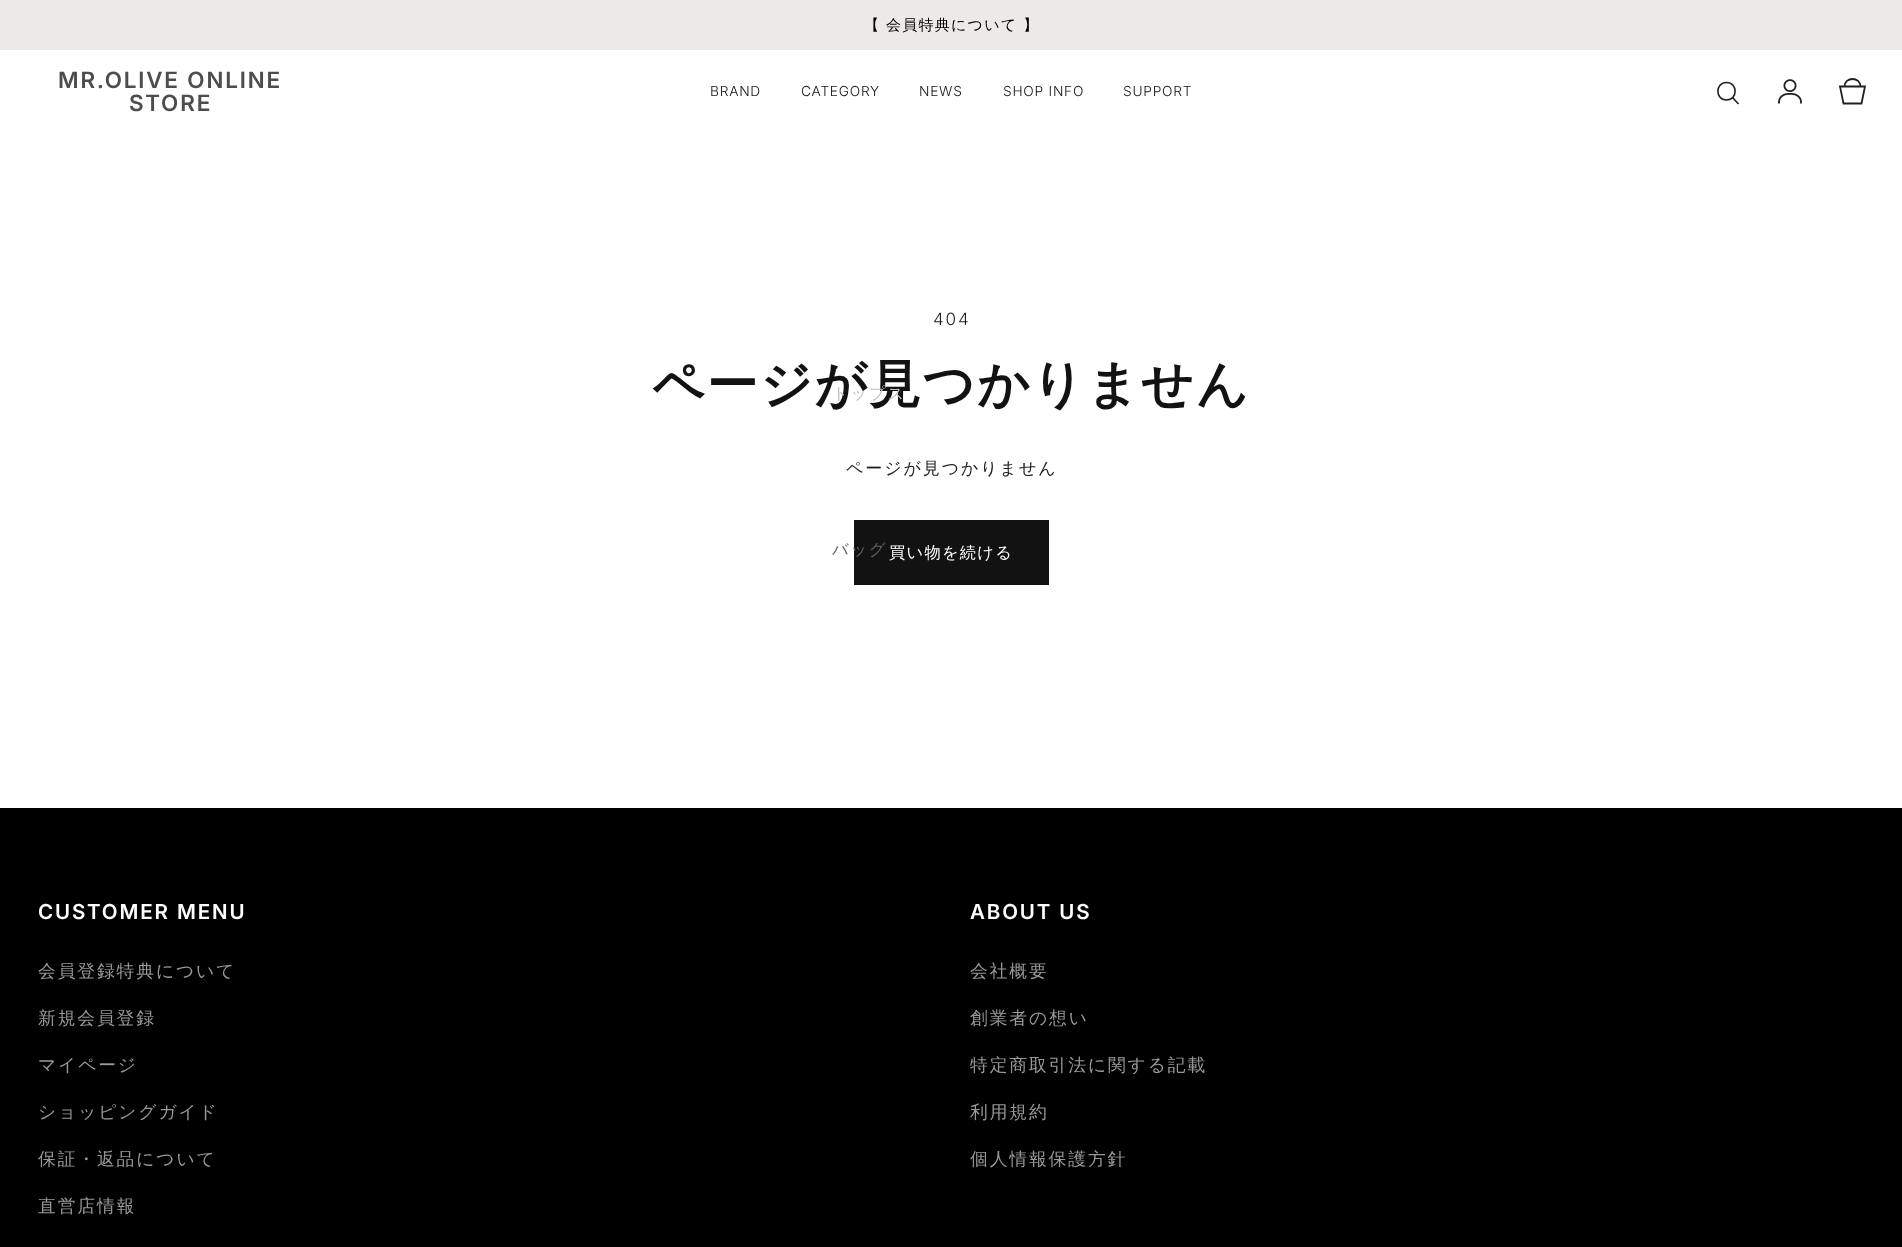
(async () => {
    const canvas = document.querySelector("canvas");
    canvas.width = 1902;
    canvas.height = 1247;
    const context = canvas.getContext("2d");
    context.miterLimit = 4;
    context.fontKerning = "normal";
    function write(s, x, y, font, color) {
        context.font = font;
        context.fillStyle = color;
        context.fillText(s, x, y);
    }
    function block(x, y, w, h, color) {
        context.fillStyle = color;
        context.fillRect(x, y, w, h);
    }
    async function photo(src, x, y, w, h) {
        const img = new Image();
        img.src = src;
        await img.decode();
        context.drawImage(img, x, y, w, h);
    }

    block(0, 0, 1902, 1247, "rgb(255, 255, 255)");
    block(0, 0, 1902, 50, "rgb(235, 234, 230)");
    context.letterSpacing = "1.25px";
    write("【 会員特典について 】", 864, 30, "500 15px WenQuanYi Zen Hei", "rgb(0, 0, 0)");
    context.letterSpacing = "1.9px";
    write("MR.OLIVE ONLINE", 58, 88, "600 22.5px 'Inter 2'", "rgb(77, 77, 77)");
    write("STORE", 129, 111, "600 22.5px 'Inter 2'", "rgb(77, 77, 77)");
    context.letterSpacing = "0.75px";
    write("BRAND", 710, 96, "300 13.75px Inter", "rgb(18, 18, 18)");
    write("CATEGORY", 801, 96, "300 13.75px Inter", "rgb(18, 18, 18)");
    context.letterSpacing = "1.9px";
    write("ページが見つかりません", 652, 402, "bold 51.5px WenQuanYi Zen Hei", "rgb(18, 18, 18)");
    write("トップス", 832, 399, "500 16.25px WenQuanYi Zen Hei", "rgb(193, 193, 193)");
    block(854, 520, 195, 65, "rgb(18, 18, 18)");
    write("バッグ", 832, 555, "500 16.25px WenQuanYi Zen Hei", "rgb(100, 100, 100)");
    context.letterSpacing = "0.75px";
    write("NEWS", 919, 96, "300 13.75px Inter", "rgb(18, 18, 18)");
    write("SHOP INFO", 1003, 96, "300 13.75px Inter", "rgb(18, 18, 18)");
    write("SUPPORT", 1123, 96, "300 13.75px Inter", "rgb(18, 18, 18)");
    context.beginPath();
    context.moveTo(1726.5, 100);
    context.bezierCurveTo(1738, 100, 1738, 82.5, 1726.5, 82.5);
    context.bezierCurveTo(1715, 82.5, 1715, 100, 1726.5, 100);
    context.closePath();
    context.moveTo(1738.5, 104);
    context.lineTo(1732.5, 97.5);
    context.strokeStyle = "rgb(32, 32, 32)";
    context.lineWidth = 1.6;
    context.stroke();
    await photo("media/1.png", 1778, 79, 24, 25);
    context.beginPath();
    context.moveTo(1865, 86.5);
    context.lineTo(1840, 86.5);
    context.lineTo(1843.5, 103.5);
    context.lineTo(1861.5, 103.5);
    context.closePath();
    context.moveTo(1860.5, 86.5);
    context.bezierCurveTo(1860.5, 76.5, 1844.5, 76.5, 1844.5, 86.5);
    context.lineWidth = 1.8;
    context.stroke();
    context.letterSpacing = "1.9px";
    write("404", 933, 325, "300 17px Inter", "rgb(32, 32, 32)");
    write("ページが見つかりません", 846, 474, "500 17px WenQuanYi Zen Hei", "rgb(32, 32, 32)");
    context.letterSpacing = "1.25px";
    write("買い物を続ける", 889, 558, "500 16.25px WenQuanYi Zen Hei", "rgb(255, 255, 255)");
    block(0, 808, 1902, 439, "rgb(0, 0, 0)");
    context.letterSpacing = "1.9px";
    write("CUSTOMER MENU", 38, 919, "600 20.6px Inter", "rgb(255, 255, 255)");
    write("会員登録特典について", 38, 977, "500 17.75px WenQuanYi Zen Hei", "rgb(153, 153, 153)");
    write("新規会員登録", 38, 1024, "500 17.75px WenQuanYi Zen Hei", "rgb(153, 153, 153)");
    write("マイページ", 38, 1071, "500 17.75px WenQuanYi Zen Hei", "rgb(153, 153, 153)");
    write("ショッピングガイド", 38, 1118, "500 17.75px WenQuanYi Zen Hei", "rgb(153, 153, 153)");
    write("保証・返品について", 38, 1165, "500 17.75px WenQuanYi Zen Hei", "rgb(153, 153, 153)");
    write("直営店情報", 38, 1212, "500 17.75px WenQuanYi Zen Hei", "rgb(153, 153, 153)");
    write("ABOUT US", 970, 919, "600 20.6px Inter", "rgb(255, 255, 255)");
    write("会社概要", 970, 977, "500 17.75px WenQuanYi Zen Hei", "rgb(153, 153, 153)");
    write("創業者の想い", 970, 1024, "500 17.75px WenQuanYi Zen Hei", "rgb(153, 153, 153)");
    write("特定商取引法に関する記載", 970, 1071, "500 17.75px WenQuanYi Zen Hei", "rgb(153, 153, 153)");
    write("利用規約", 970, 1118, "500 17.75px WenQuanYi Zen Hei", "rgb(153, 153, 153)");
    write("個人情報保護方針", 970, 1165, "500 17.75px WenQuanYi Zen Hei", "rgb(153, 153, 153)");
})();
